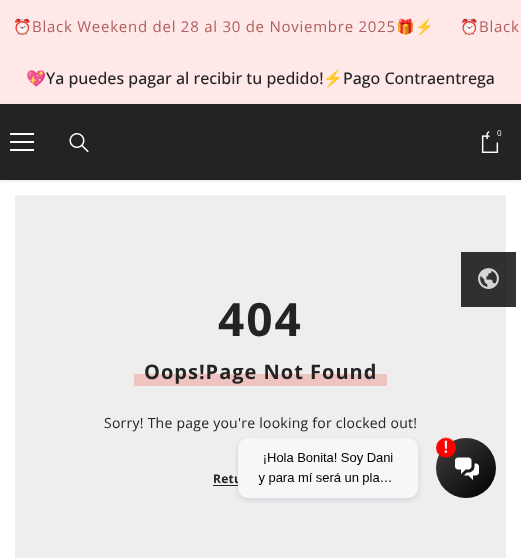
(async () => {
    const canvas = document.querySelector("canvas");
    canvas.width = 521;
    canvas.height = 558;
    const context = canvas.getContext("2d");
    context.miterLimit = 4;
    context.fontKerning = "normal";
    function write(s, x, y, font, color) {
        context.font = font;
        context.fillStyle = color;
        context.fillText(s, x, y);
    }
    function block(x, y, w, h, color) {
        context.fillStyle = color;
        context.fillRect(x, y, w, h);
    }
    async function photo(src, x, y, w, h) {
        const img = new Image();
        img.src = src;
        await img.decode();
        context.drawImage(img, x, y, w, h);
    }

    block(0, 0, 521, 558, "rgb(255, 255, 255)");
    block(506, 252, 10, 55, "rgb(51, 51, 51)");
    block(0, 0, 521, 104, "rgb(255, 232, 232)");
    context.letterSpacing = "0.75px";
    write("⏰", 13, 32, "15px Noto Color Emoji", "rgb(176, 93, 93)");
    write("Black Weekend del 28 al 30 de Noviembre 2025", 32, 32, "15px Open Sans", "rgb(176, 93, 93)");
    write("🎁⚡", 396, 32, "15px Noto Color Emoji", "rgb(176, 93, 93)");
    write("⏰", 460, 32, "15px Noto Color Emoji", "rgb(176, 93, 93)");
    write("Black", 479, 32, "15px Open Sans", "rgb(176, 93, 93)");
    context.letterSpacing = "0px";
    write("💖", 26, 84, "16px Noto Color Emoji", "rgb(35, 35, 35)");
    write("Ya puedes pagar al recibir tu pedido!", 46, 84, "500 16px Open Sans", "rgb(35, 35, 35)");
    write("⚡", 323, 84, "16px Noto Color Emoji", "rgb(35, 35, 35)");
    write("Pago Contraentrega", 343, 84, "500 16px Open Sans", "rgb(35, 35, 35)");
    context.fillStyle = "rgba(0, 0, 0, 0.1)";
    context.filter = "blur(1.5px)";
    context.beginPath();
    context.rect(0, 105, 521, 76);
    context.fill();
    context.filter = "none";
    block(0, 104, 521, 76, "rgb(35, 35, 35)");
    block(10, 141, 24, 2, "rgb(255, 255, 255)");
    block(10, 133, 24, 2, "rgb(255, 255, 255)");
    block(10, 149, 24, 2, "rgb(255, 255, 255)");
    await photo("media/1.png", 69, 133, 20, 20);
    await photo("media/2.png", 481, 131, 18, 22);
    context.fillStyle = "rgb(35, 35, 35)";
    context.beginPath();
    context.arc(499, 133, 10, 0, Math.PI * 2);
    context.fill();
    write("0", 497, 136, "8px Open Sans", "rgb(255, 255, 255)");
    block(15, 195, 491, 363, "rgb(238, 238, 238)");
    block(461, 252, 45, 55, "rgb(48, 48, 48)");
    context.letterSpacing = "2px";
    write("404", 218, 336, "bold 46px Open Sans", "rgb(35, 35, 35)");
    block(134, 374, 253, 12, "rgb(239, 195, 192)");
    context.letterSpacing = "1px";
    write("Oops!Page Not Found", 144, 379, "bold 20px Open Sans", "rgb(35, 35, 35)");
    context.letterSpacing = "0.25px";
    write("Sorry! The page you're looking for clocked out!", 104, 428, "14px Open Sans", "rgb(35, 35, 35)");
    write("Retu", 213, 483, "bold 12px Open Sans", "rgb(35, 35, 35)");
    block(213, 485, 25, 1, "rgb(35, 35, 35)");
    await photo("media/3.png", 478, 268, 21, 21);
    await photo("media/4.png", 235, 437, 261, 66);
})();
